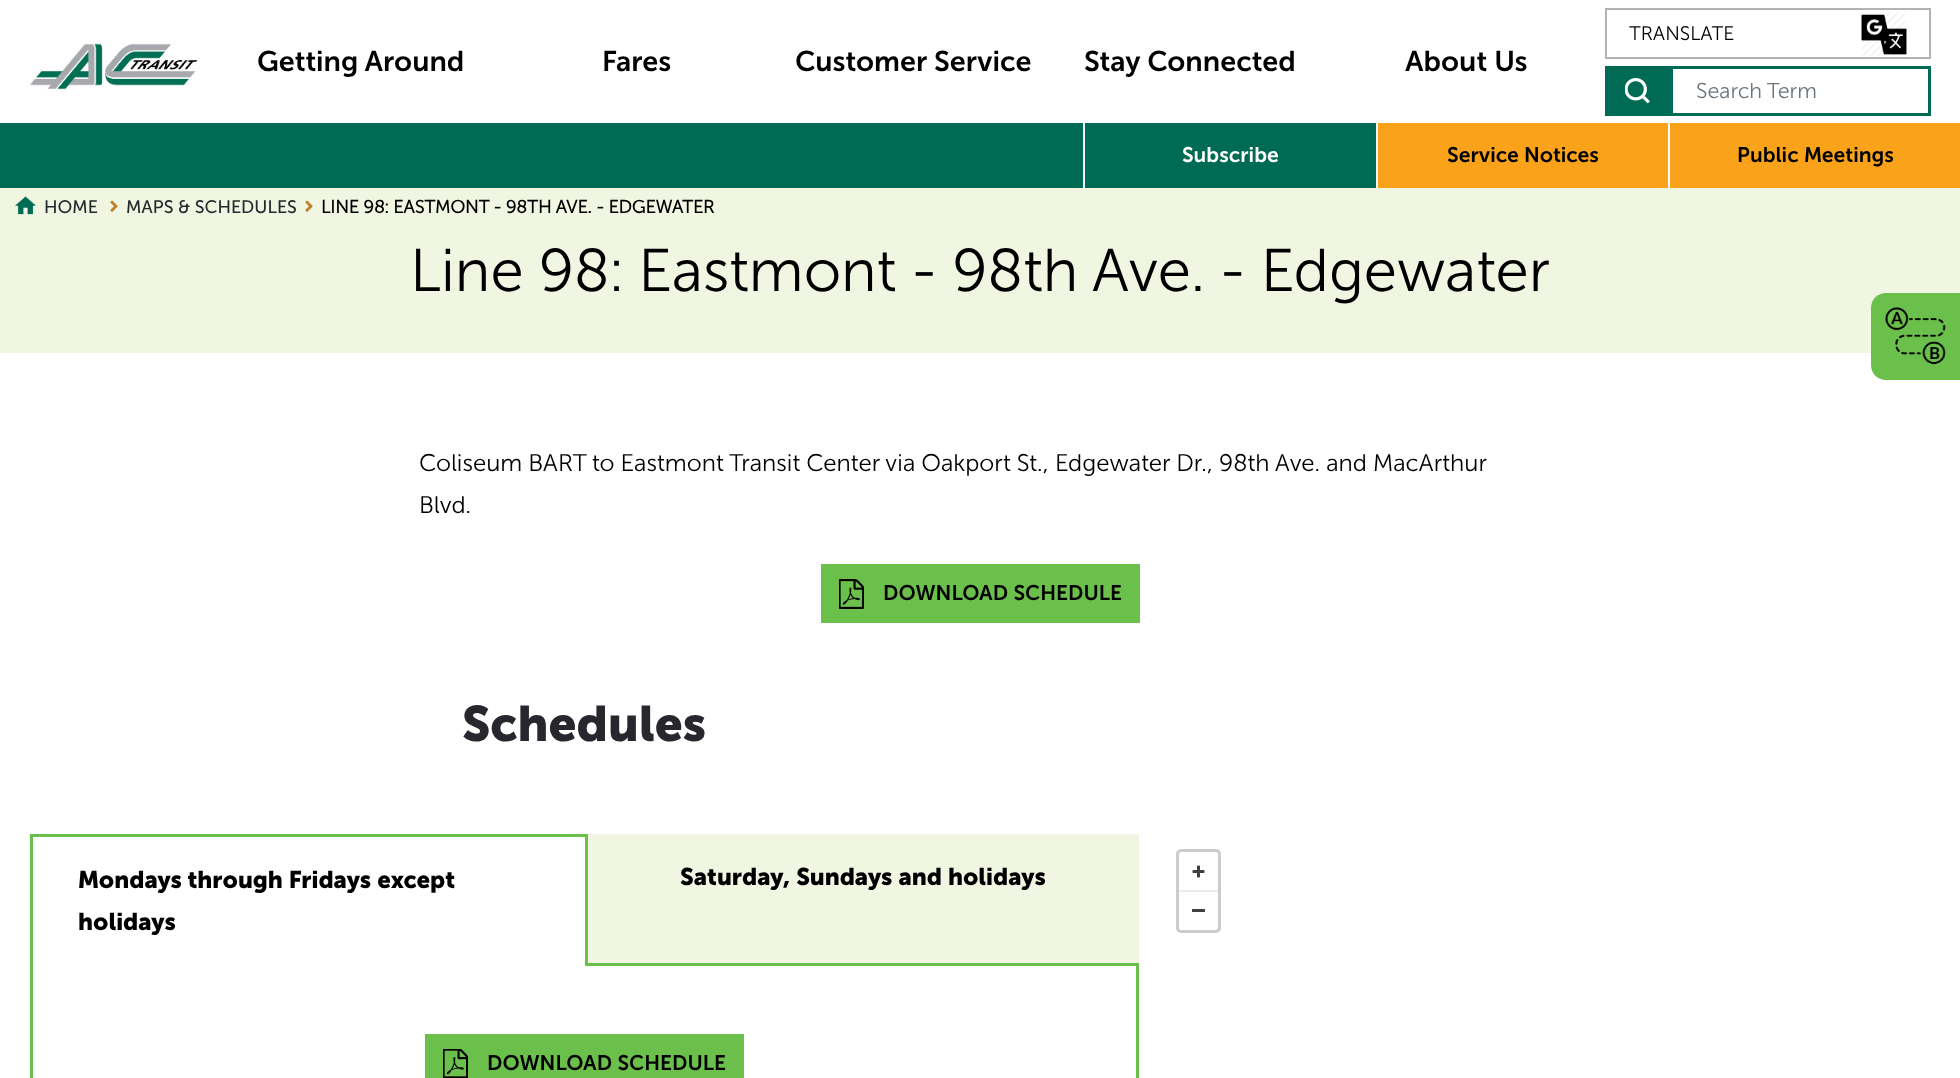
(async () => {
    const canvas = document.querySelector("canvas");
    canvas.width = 1960;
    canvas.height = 1078;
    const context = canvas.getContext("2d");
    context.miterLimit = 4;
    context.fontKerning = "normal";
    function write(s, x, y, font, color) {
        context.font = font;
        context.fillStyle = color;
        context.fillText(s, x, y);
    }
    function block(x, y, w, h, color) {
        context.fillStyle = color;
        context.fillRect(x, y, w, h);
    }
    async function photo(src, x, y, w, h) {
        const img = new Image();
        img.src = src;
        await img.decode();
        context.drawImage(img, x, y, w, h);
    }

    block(0, 0, 1960, 1078, "rgb(255, 255, 255)");
    await photo("media/1.png", 30, 43, 168, 47);
    write("Getting Around", 257, 71, "600 28.5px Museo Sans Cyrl", "rgb(0, 0, 0)");
    write("Fares", 602, 71, "600 28.5px Museo Sans Cyrl", "rgb(0, 0, 0)");
    write("Customer Service", 795, 71, "600 28.5px Museo Sans Cyrl", "rgb(0, 0, 0)");
    write("Stay Connected", 1084, 71, "600 28.5px Museo Sans Cyrl", "rgb(0, 0, 0)");
    write("About Us", 1405, 71, "600 28.5px Museo Sans Cyrl", "rgb(0, 0, 0)");
    context.strokeStyle = "rgb(179, 179, 179)";
    context.lineWidth = 2;
    context.strokeRect(1606, 9, 324, 49);
    await photo("media/2.png", 1861, 12, 46, 45);
    write("TRANSLATE", 1629, 40, "300 19.5px Museo Sans Cyrl", "rgb(0, 0, 0)");
    block(1605, 66, 65, 50, "rgb(0, 107, 84)");
    await photo("media/3.png", 1625, 78, 25, 26);
    context.strokeStyle = "rgb(0, 107, 84)";
    context.lineWidth = 3;
    context.strokeRect(1671.5, 67.5, 258, 47);
    write("Search Term", 1696, 98, "300 21.5px Museo Sans Cyrl", "rgb(108, 117, 125)");
    block(0, 123, 1376, 65, "rgb(0, 107, 84)");
    block(1083, 123, 2, 65, "rgb(241, 249, 255)");
    write("Subscribe", 1182, 162, "600 21px Museo Sans Cyrl", "rgb(255, 255, 255)");
    block(1378, 123, 290, 65, "rgb(249, 162, 26)");
    block(1376, 123, 2, 65, "rgb(241, 249, 255)");
    write("Service Notices", 1447, 162, "600 21px Museo Sans Cyrl", "rgb(0, 0, 0)");
    block(1670, 123, 290, 65, "rgb(249, 162, 26)");
    block(1668, 123, 2, 65, "rgb(241, 249, 255)");
    write("Public Meetings", 1737, 162, "600 21px Museo Sans Cyrl", "rgb(0, 0, 0)");
    block(0, 188, 1960, 165, "rgb(241, 246, 226)");
    await photo("media/4.png", 15, 196, 21, 19);
    write("HOME", 44, 213, "18px Museo Sans Cyrl", "rgb(39, 40, 45)");
    await photo("media/5.png", 110, 200, 8, 12);
    write("MAPS & SCHEDULES", 126, 213, "18px Museo Sans Cyrl", "rgb(39, 40, 45)");
    await photo("media/5.png", 305, 200, 8, 12);
    write("LINE 98: EASTMONT - 98TH AVE. - EDGEWATER", 321, 213, "bold 18px Museo Sans Cyrl", "rgb(0, 0, 0)");
    write("Line 98: Eastmont - 98th Ave. - Edgewater", 410, 291, "300 60px Museo Sans Cyrl", "rgb(0, 0, 0)");
    write("Coliseum BART to Eastmont Transit Center via Oakport St., Edgewater Dr., 98th Ave. and MacArthur", 419, 471, "300 24px Museo Sans Cyrl", "rgb(0, 0, 0)");
    write("Blvd.", 419, 513, "300 24px Museo Sans Cyrl", "rgb(0, 0, 0)");
    block(821, 564, 319, 59, "rgb(107, 191, 75)");
    await photo("media/6.png", 839, 579, 25, 30);
    write("DOWNLOAD SCHEDULE", 883, 600, "600 21px Museo Sans Cyrl", "rgb(0, 0, 0)");
    write("Schedules", 462, 741, "bold 49.5px 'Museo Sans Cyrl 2'", "rgb(39, 40, 45)");
    block(30, 834, 555, 3, "rgb(107, 191, 75)");
    block(30, 834, 3, 132, "rgb(107, 191, 75)");
    write("Mondays through Fridays except", 78, 888, "bold 24px 'Museo Sans Cyrl 2'", "rgb(0, 0, 0)");
    write("holidays", 78, 930, "bold 24px 'Museo Sans Cyrl 2'", "rgb(0, 0, 0)");
    block(588, 834, 551, 129, "rgb(241, 246, 226)");
    block(585, 963, 554, 3, "rgb(107, 191, 75)");
    block(585, 834, 3, 132, "rgb(107, 191, 75)");
    write("Saturday, Sundays and holidays", 680, 885, "bold 24px 'Museo Sans Cyrl 2'", "rgb(0, 0, 0)");
    block(1136, 966, 3, 112, "rgb(107, 191, 75)");
    block(30, 966, 3, 112, "rgb(107, 191, 75)");
    block(425, 1034, 319, 44, "rgb(107, 191, 75)");
    await photo("media/7.png", 443, 1049, 25, 29);
    write("DOWNLOAD SCHEDULE", 487, 1070, "600 21px Museo Sans Cyrl", "rgb(0, 0, 0)");
    context.fillStyle = "rgb(107, 191, 75)";
    context.beginPath();
    context.moveTo(1886, 293);
    context.lineTo(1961, 293);
    context.lineTo(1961, 380);
    context.lineTo(1886, 380);
    context.bezierCurveTo(1877.5, 380, 1871, 373.5, 1871, 365);
    context.lineTo(1871, 308);
    context.bezierCurveTo(1871, 299.5, 1877.5, 293, 1886, 293);
    context.closePath();
    context.fill();
    await photo("media/8.png", 1885, 307, 61, 58);
    context.beginPath();
    context.roundRect(1177.5, 850.5, 42, 81, 3.5);
    context.strokeStyle = "rgb(204, 204, 204)";
    context.stroke();
    await photo("media/9.png", 1192, 865, 13, 13);
    block(1179, 890, 39, 2, "rgb(236, 236, 236)");
    block(1192, 909, 13, 3, "rgb(64, 64, 64)");
})();
